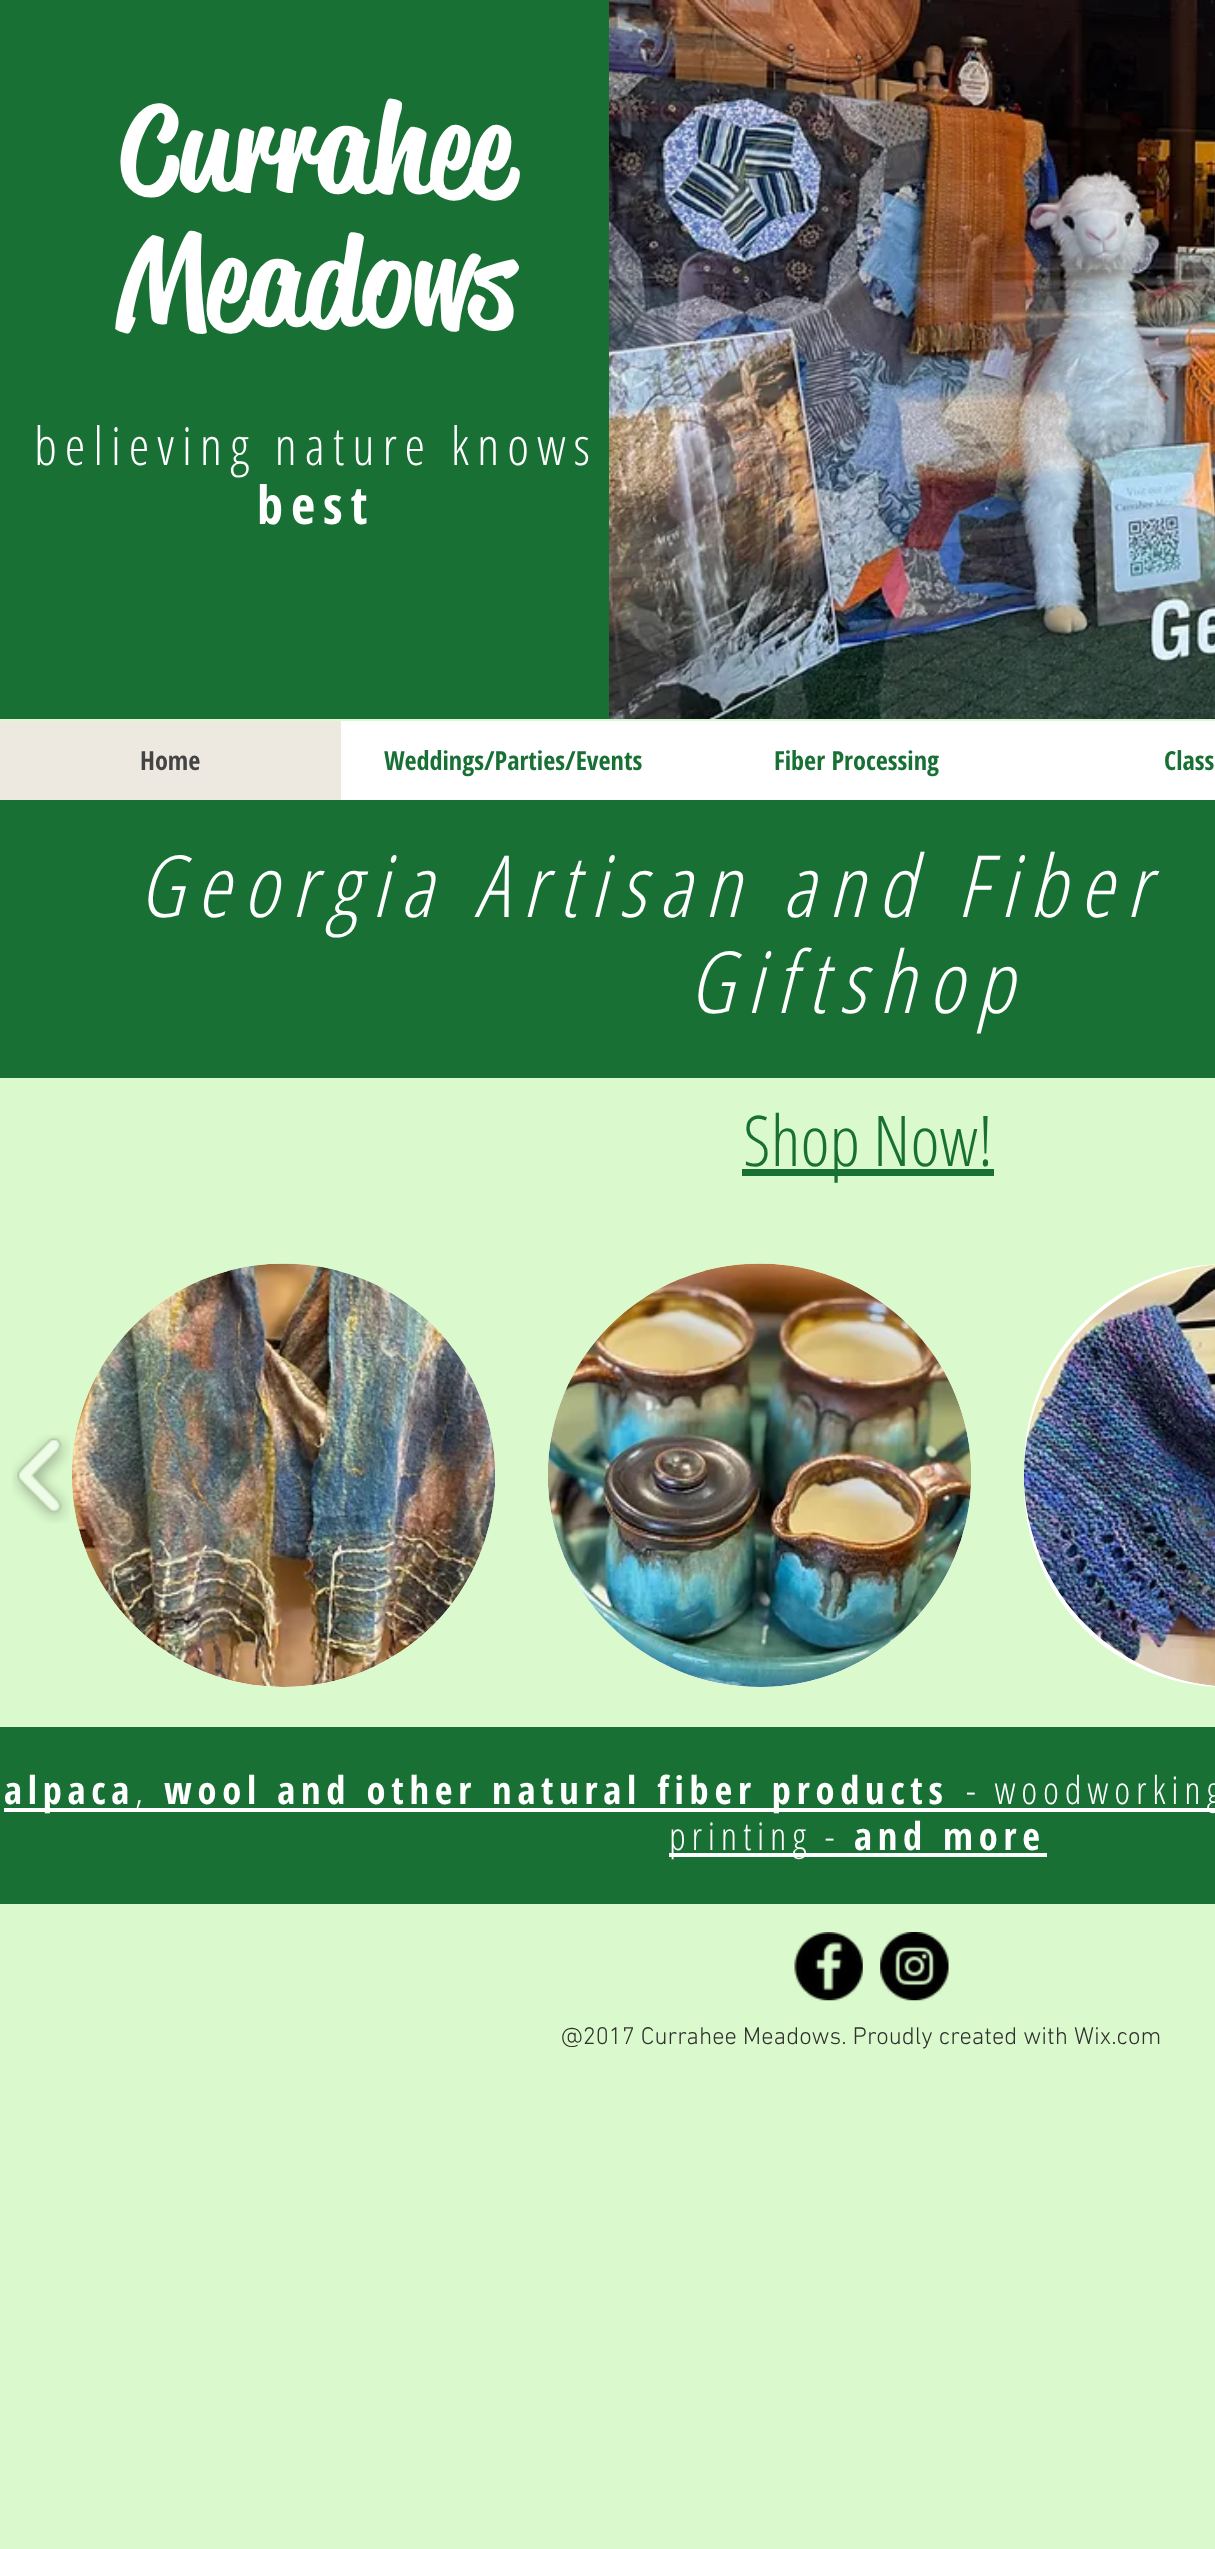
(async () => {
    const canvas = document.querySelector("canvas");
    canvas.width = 1215;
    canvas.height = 2549;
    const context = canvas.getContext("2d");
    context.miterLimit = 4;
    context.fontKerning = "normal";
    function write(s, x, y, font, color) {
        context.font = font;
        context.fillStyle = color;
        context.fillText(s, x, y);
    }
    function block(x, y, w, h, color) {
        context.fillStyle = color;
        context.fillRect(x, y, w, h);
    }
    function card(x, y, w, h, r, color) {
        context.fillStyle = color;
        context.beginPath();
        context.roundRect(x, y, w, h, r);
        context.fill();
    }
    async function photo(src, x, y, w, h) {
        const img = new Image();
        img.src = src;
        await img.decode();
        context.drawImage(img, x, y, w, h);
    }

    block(0, 0, 1215, 2549, "rgb(218, 249, 204)");
    block(0, 0, 609, 719, "rgb(24, 112, 53)");
    write("Currahee", 119, 191, "500 122.5px 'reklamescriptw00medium'", "rgb(255, 255, 255)");
    write("Meadows", 117, 324, "500 122.5px 'reklamescriptw00medium'", "rgb(255, 255, 255)");
    await photo("media/1.png", 609, 0, 606, 719);
    context.letterSpacing = "7.9px";
    write("believing nature knows", 34, 465, "300 52.5px Open Sans Condensed", "rgb(255, 255, 255)");
    write("best", 257, 524, "bold 52.5px Open Sans Condensed", "rgb(255, 255, 255)");
    block(341, 721, 874, 79, "rgb(255, 255, 255)");
    block(0, 721, 341, 79, "rgb(237, 233, 225)");
    context.letterSpacing = "0px";
    write("Home", 140, 770, "bold 26.25px Open Sans Condensed", "rgb(68, 68, 68)");
    write("Weddings/Parties/Events", 384, 770, "bold 26.25px Open Sans Condensed", "rgb(24, 112, 53)");
    write("Fiber Processing", 774, 770, "bold 26.25px Open Sans Condensed", "rgb(24, 112, 53)");
    write("Class", 1164, 770, "bold 26.25px Open Sans Condensed", "rgb(24, 112, 53)");
    block(0, 800, 1215, 278, "rgb(24, 112, 53)");
    context.letterSpacing = "12.85px";
    write("Georgia Artisan and Fiber", 138, 917, "italic 300 85.75px Open Sans Condensed", "rgb(255, 255, 255)");
    write("Giftshop", 688, 1013, "italic 300 85.75px Open Sans Condensed", "rgb(255, 255, 255)");
    block(742, 1169, 252, 7, "rgb(24, 112, 53)");
    context.letterSpacing = "0px";
    write("Shop Now!", 743, 1166, "300 70px Open Sans Condensed", "rgb(24, 112, 53)");
    await photo("media/2.png", 12, 1435, 58, 88);
    context.fillStyle = "rgb(255, 255, 255)";
    context.beginPath();
    context.arc(283.5, 1475.5, 211.5, 0, Math.PI * 2);
    context.fill();
    await photo("media/3.png", 72, 1263, 423, 424);
    context.beginPath();
    context.arc(759.5, 1475.5, 211.5, 0, Math.PI * 2);
    context.fill();
    await photo("media/4.png", 548, 1263, 423, 424);
    card(1024, 1264, 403, 423, 211.5, "rgb(255, 255, 255)");
    await photo("media/5.png", 1024, 1264, 191, 422);
    block(0, 1727, 1215, 177, "rgb(24, 112, 53)");
    block(4, 1808, 1211, 4, "rgb(255, 255, 255)");
    context.letterSpacing = "5.75px";
    write("alpaca", 4, 1804, "bold 38.5px Open Sans Condensed", "rgb(255, 255, 255)");
    write(",", 135, 1804, "300 38.5px Open Sans Condensed", "rgb(255, 255, 255)");
    write("wool and other natural fiber products", 164, 1804, "bold 38.5px Open Sans Condensed", "rgb(255, 255, 255)");
    write("- woodworking", 966, 1804, "300 38.5px Open Sans Condensed", "rgb(255, 255, 255)");
    block(669, 1853, 378, 4, "rgb(255, 255, 255)");
    write("printing -", 669, 1850, "300 38.5px Open Sans Condensed", "rgb(255, 255, 255)");
    write("and more", 854, 1850, "bold 38.5px Open Sans Condensed", "rgb(255, 255, 255)");
    await photo("media/6.png", 794, 1932, 69, 69);
    await photo("media/7.png", 880, 1932, 69, 69);
    context.letterSpacing = "0px";
    write("@2017 Currahee Meadows. Proudly created with Wix.com", 561, 2044, "300 24.5px 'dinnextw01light'", "rgb(48, 48, 48)");
})();
